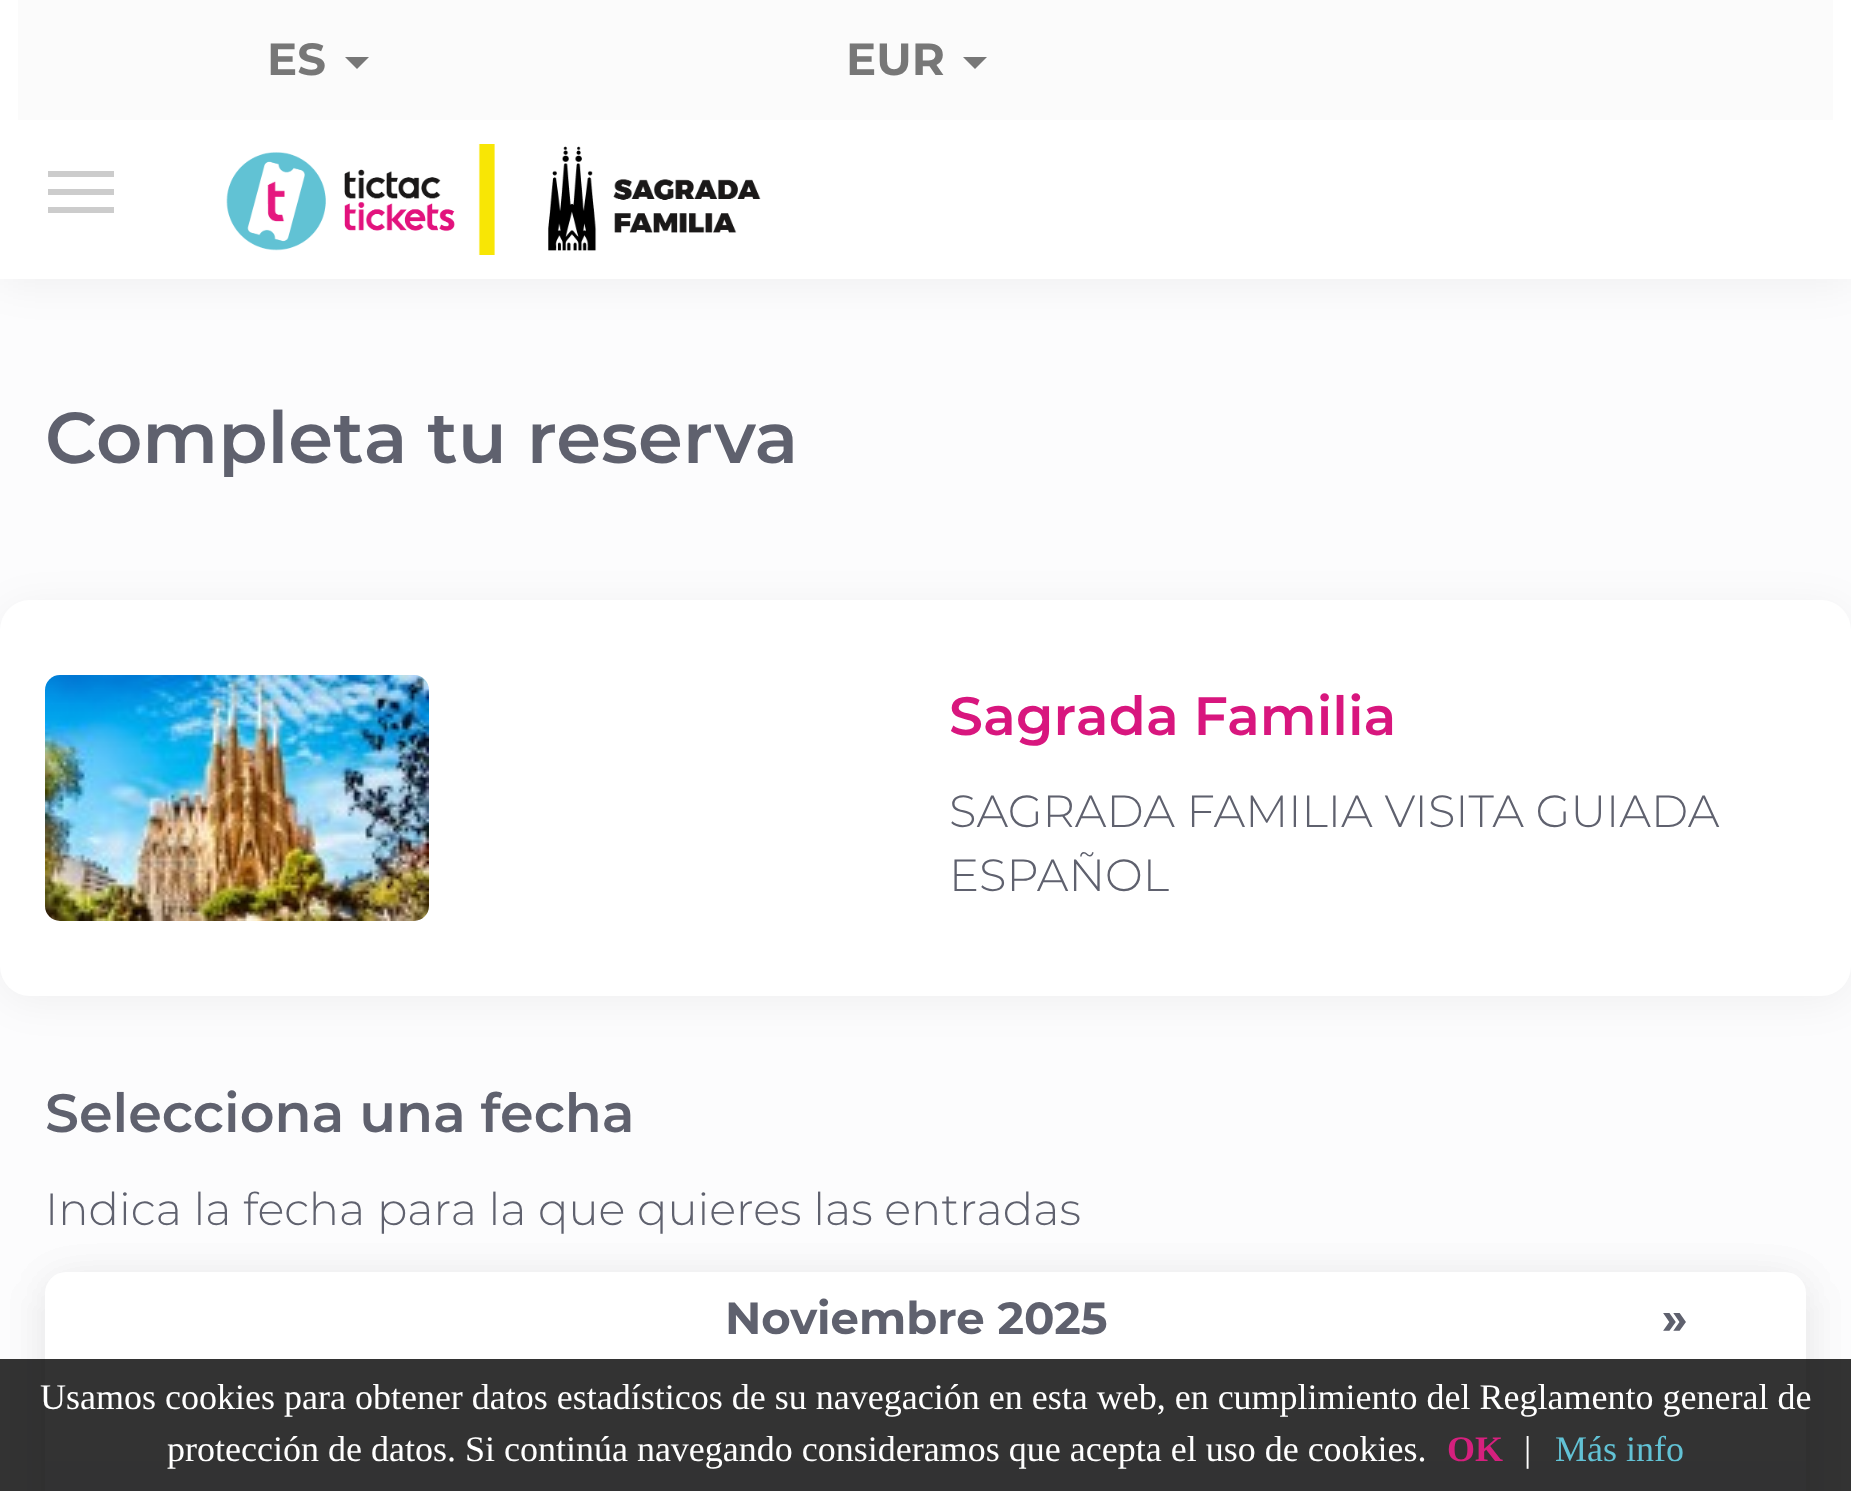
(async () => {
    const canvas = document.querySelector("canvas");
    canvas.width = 1851;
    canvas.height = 1491;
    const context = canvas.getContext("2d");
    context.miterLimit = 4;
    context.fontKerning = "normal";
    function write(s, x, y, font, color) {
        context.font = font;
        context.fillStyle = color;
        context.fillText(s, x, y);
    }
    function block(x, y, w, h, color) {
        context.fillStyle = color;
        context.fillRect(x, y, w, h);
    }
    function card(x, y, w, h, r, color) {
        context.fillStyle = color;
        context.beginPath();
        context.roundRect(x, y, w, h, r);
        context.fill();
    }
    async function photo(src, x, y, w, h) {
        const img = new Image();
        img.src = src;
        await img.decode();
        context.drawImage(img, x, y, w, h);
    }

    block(0, 0, 1851, 1491, "rgb(252, 252, 253)");
    context.fillStyle = "rgba(0, 0, 0, 0.05)";
    context.filter = "blur(21px)";
    context.beginPath();
    context.rect(0, 6, 1851, 279);
    context.fill();
    context.filter = "none";
    block(0, 0, 1851, 279, "rgb(255, 255, 255)");
    block(18, 0, 1815, 120, "rgb(251, 251, 251)");
    write("ES", 267, 75, "bold 45px Montserrat", "rgb(119, 119, 119)");
    context.beginPath();
    context.moveTo(345, 57);
    context.lineTo(369, 57);
    context.lineTo(357, 69);
    context.closePath();
    context.fill();
    write("EUR", 846, 75, "bold 45px Montserrat", "rgb(119, 119, 119)");
    context.beginPath();
    context.moveTo(963, 57);
    context.lineTo(987, 57);
    context.lineTo(975, 69);
    context.closePath();
    context.fill();
    block(48, 171, 66, 6, "rgb(204, 204, 204)");
    block(48, 189, 66, 6, "rgb(204, 204, 204)");
    block(48, 207, 66, 6, "rgb(204, 204, 204)");
    await photo("media/1.png", 226, 144, 535, 111);
    write("Completa tu reserva", 45, 463, "600 72px Montserrat", "rgb(95, 97, 110)");
    context.fillStyle = "rgba(0, 0, 0, 0.05)";
    context.filter = "blur(21px)";
    context.beginPath();
    context.roundRect(0, 606, 1851, 396, 30);
    context.fill();
    context.filter = "none";
    card(0, 600, 1851, 396, 30, "rgb(255, 255, 255)");
    await photo("media/2.png", 45, 675, 384, 246);
    write("Sagrada Familia", 949, 735, "600 54px Montserrat", "rgb(216, 22, 126)");
    write("SAGRADA FAMILIA VISITA GUIADA", 949, 827, "300 45px Montserrat", "rgb(95, 97, 110)");
    write("ESPAÑOL", 949, 891, "300 45px Montserrat", "rgb(95, 97, 110)");
    write("Selecciona una fecha", 45, 1132, "600 54px Montserrat", "rgb(95, 97, 110)");
    context.fillStyle = "rgba(0, 0, 0, 0.05)";
    context.filter = "blur(21px)";
    context.beginPath();
    context.roundRect(45, 1278, 1761, 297, 21);
    context.fill();
    context.filter = "none";
    context.filter = "blur(21px)";
    context.beginPath();
    context.roundRect(45, 1278, 1761, 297, 21);
    context.fill();
    context.filter = "none";
    write("Indica la fecha para la que quieres las entradas", 45, 1225, "300 45px Montserrat", "rgb(95, 97, 110)");
    card(45, 1272, 1761, 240, 21, "rgb(255, 255, 255)");
    write("Noviembre 2025", 725, 1334, "bold 45px Montserrat", "rgb(95, 97, 110)");
    write("»", 1662, 1334, "bold 45px Montserrat", "rgb(95, 97, 110)");
    block(45, 1461, 1761, 30, "rgb(251, 251, 252)");
    block(0, 1359, 1851, 132, "rgba(0, 0, 0, 0.8)");
    write("Usamos cookies para obtener datos estadísticos de su navegación en esta web, en cumplimiento del Reglamento general de", 40, 1409, "36px Liberation Serif", "rgb(255, 255, 255)");
    write("protección de datos. Si continúa navegando consideramos que acepta el uso de cookies.", 167, 1461, "36px Liberation Serif", "rgb(255, 255, 255)");
    write("OK", 1447, 1461, "bold 36px Liberation Serif", "rgb(214, 32, 126)");
    write("|", 1524, 1461, "36px Liberation Serif", "rgb(255, 255, 255)");
    write("Más info", 1555, 1461, "36px Liberation Serif", "rgb(98, 194, 213)");
})();
